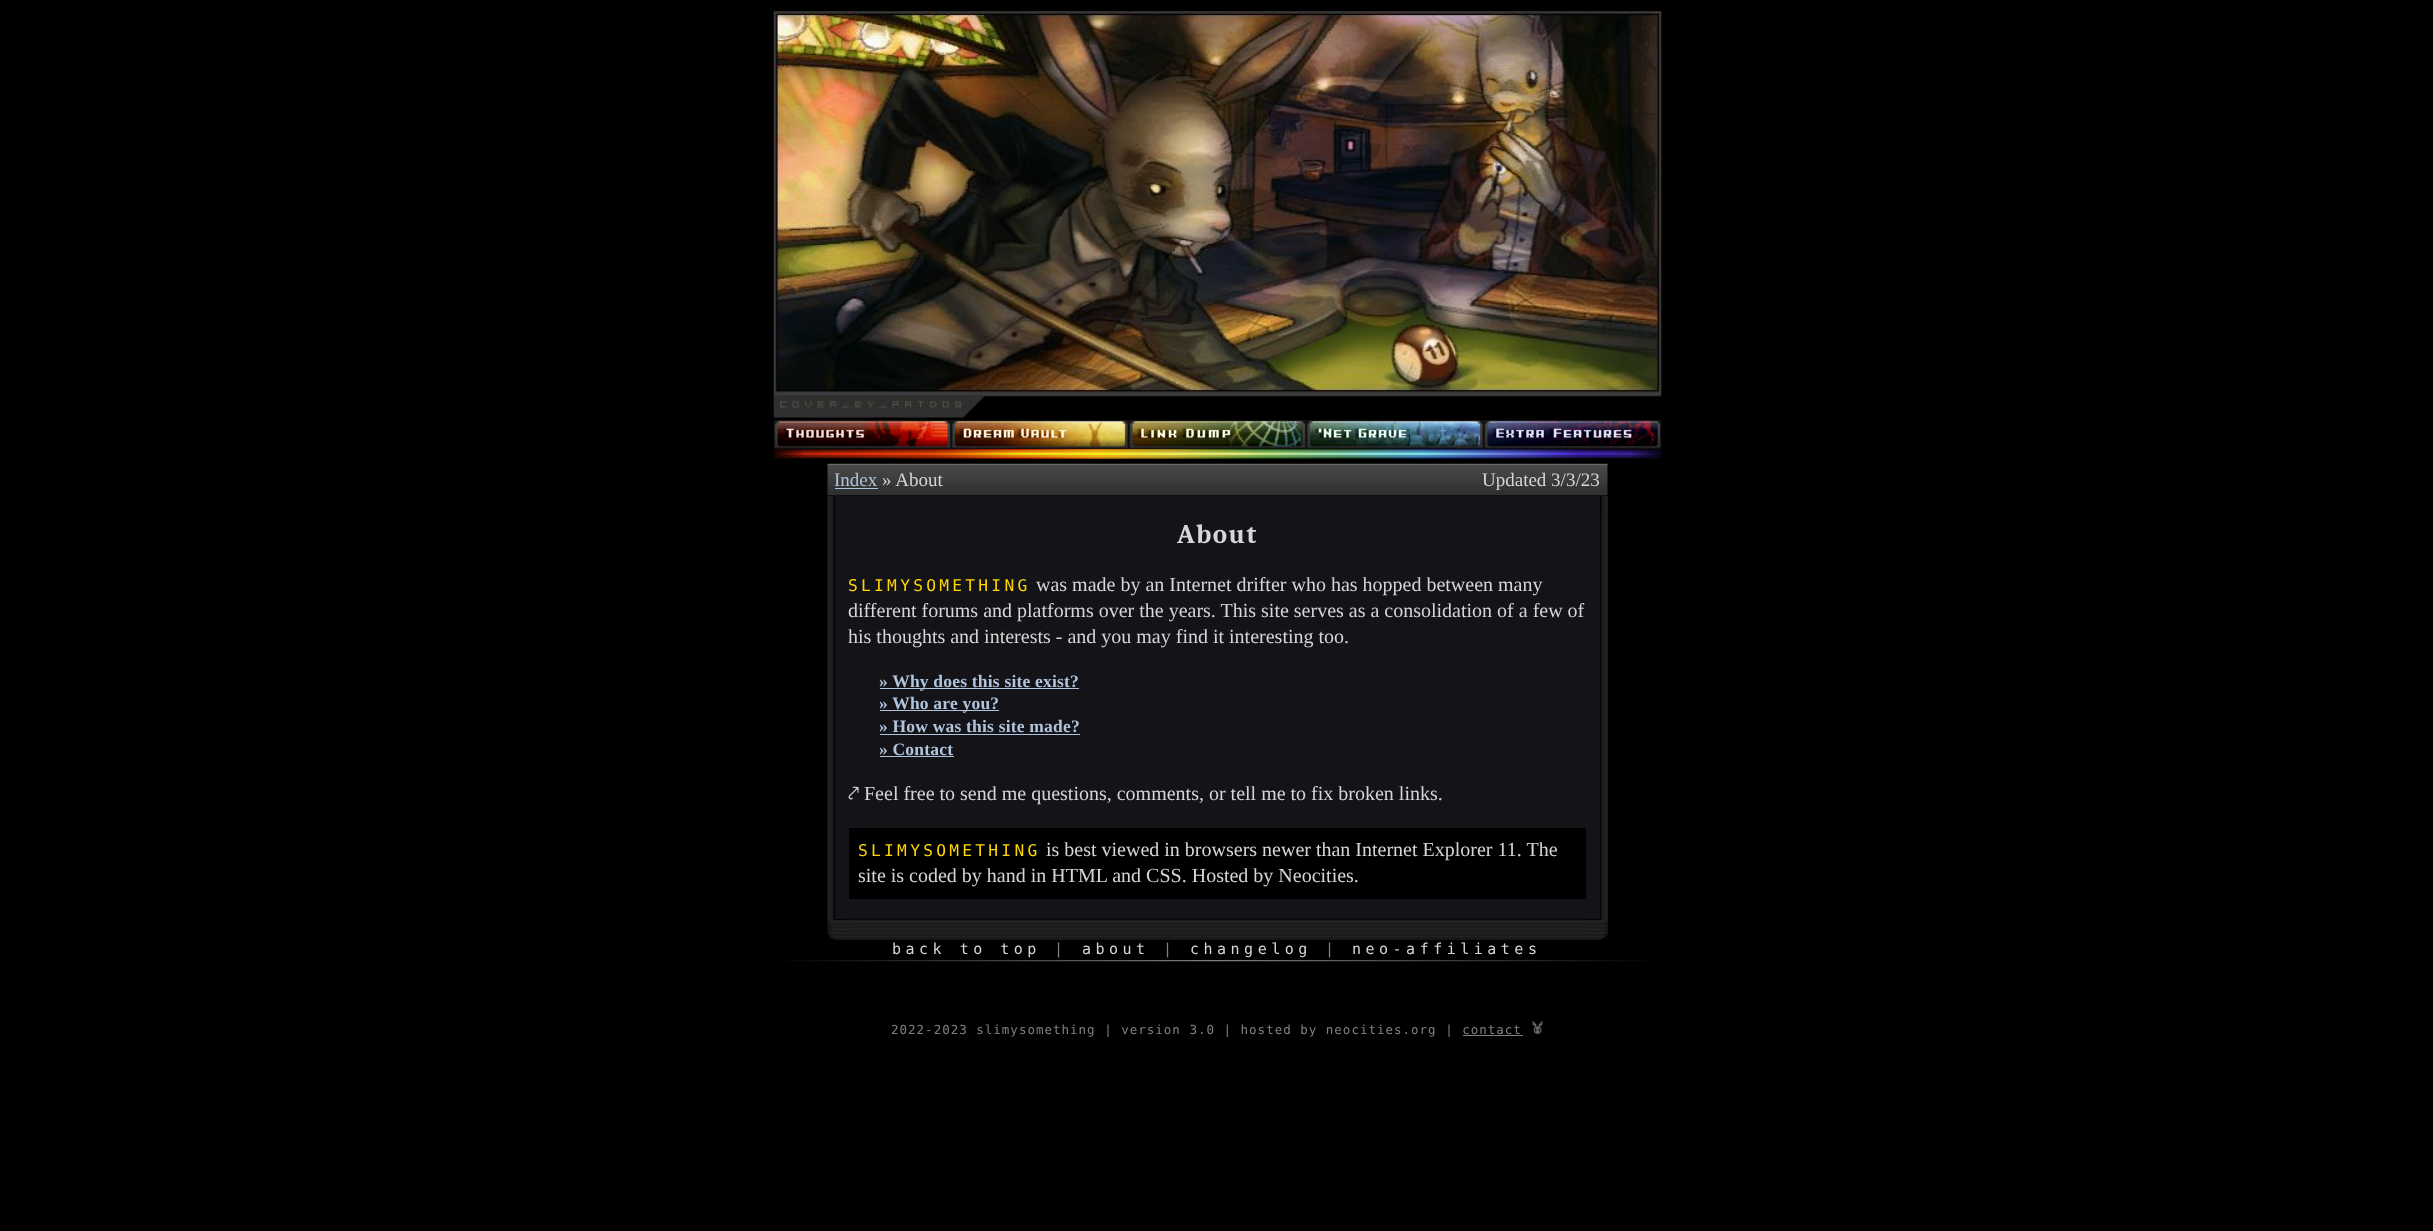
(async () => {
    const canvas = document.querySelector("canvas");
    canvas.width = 2433;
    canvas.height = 1231;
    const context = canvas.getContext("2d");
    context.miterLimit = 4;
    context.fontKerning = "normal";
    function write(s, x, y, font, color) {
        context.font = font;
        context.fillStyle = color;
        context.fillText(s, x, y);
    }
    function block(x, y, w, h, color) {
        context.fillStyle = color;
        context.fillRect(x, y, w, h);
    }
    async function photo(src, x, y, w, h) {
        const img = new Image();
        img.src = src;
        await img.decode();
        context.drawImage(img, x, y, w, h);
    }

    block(0, 0, 2433, 1231, "rgb(0, 0, 0)");
    await photo("media/1.png", 773, 11, 889, 407);
    await photo("media/2.png", 773, 448, 889, 11);
    await photo("media/3.png", 773, 420, 179, 29);
    await photo("media/4.png", 951, 420, 178, 29);
    await photo("media/5.png", 1129, 420, 178, 29);
    await photo("media/6.png", 1306, 420, 178, 29);
    await photo("media/7.png", 1484, 420, 178, 29);
    await photo("media/8.png", 827, 463, 781, 33);
    write("Index", 834, 486, "19px Liberation Serif", "rgb(176, 196, 222)");
    block(835, 488, 43, 1, "rgb(176, 196, 222)");
    write("» About", 882, 486, "19px Liberation Serif", "rgb(214, 214, 214)");
    write("Updated 3/3/23", 1482, 486, "19px Liberation Serif", "rgb(214, 214, 214)");
    block(828, 496, 780, 444, "rgb(20, 20, 24)");
    await photo("media/9.png", 827, 496, 781, 444);
    context.letterSpacing = "1.5px";
    write("About", 1177, 543, "bold 27px Caladea", "rgb(214, 214, 214)");
    context.letterSpacing = "3.25px";
    write("SLIMYSOMETHING", 848, 591, "16.25px DejaVu Sans Mono", "rgb(255, 215, 0)");
    context.letterSpacing = "0px";
    write("was made by an Internet drifter who has hopped between many", 1036, 591, "20px Liberation Serif", "rgb(214, 214, 214)");
    write("different forums and platforms over the years. This site serves as a consolidation of a few of", 848, 617, "20px Liberation Serif", "rgb(214, 214, 214)");
    write("his thoughts and interests - and you may find it interesting too.", 848, 643, "20px Liberation Serif", "rgb(214, 214, 214)");
    block(880, 688, 199, 1, "rgb(176, 196, 222)");
    context.letterSpacing = "0.2px";
    write("» Why does this site exist?", 879, 687, "bold 17.5px Liberation Serif", "rgb(176, 196, 222)");
    block(880, 710, 119, 1, "rgb(176, 196, 222)");
    write("» Who are you?", 879, 709, "bold 17.5px Liberation Serif", "rgb(176, 196, 222)");
    write("» How was this site made?", 879, 732, "bold 17.5px Liberation Serif", "rgb(176, 196, 222)");
    block(880, 734, 200, 1, "rgb(176, 196, 222)");
    write("» Contact", 879, 755, "bold 17.5px Liberation Serif", "rgb(176, 196, 222)");
    block(880, 756, 74, 1, "rgb(176, 196, 222)");
    context.letterSpacing = "0px";
    write("⤤", 848, 800, "20px FreeSerif", "rgb(214, 214, 214)");
    write("Feel free to send me questions, comments, or tell me to fix broken links.", 864, 800, "20px Liberation Serif", "rgb(214, 214, 214)");
    block(849, 828, 737, 71, "rgb(0, 0, 0)");
    context.letterSpacing = "3.25px";
    write("SLIMYSOMETHING", 858, 856, "16.25px DejaVu Sans Mono", "rgb(255, 215, 0)");
    context.letterSpacing = "0px";
    write("is best viewed in browsers newer than Internet Explorer 11. The", 1046, 856, "20px Liberation Serif", "rgb(214, 214, 214)");
    write("site is coded by hand in HTML and CSS. Hosted by Neocities.", 858, 882, "20px Liberation Serif", "rgb(214, 214, 214)");
    await photo("media/10.png", 785, 960, 865, 2);
    context.letterSpacing = "4.5px";
    write("back to top", 892, 954, "15px DejaVu Sans Mono", "rgb(214, 214, 214)");
    write("|", 1054, 954, "15px DejaVu Sans Mono", "rgb(128, 128, 128)");
    write("about", 1082, 954, "15px DejaVu Sans Mono", "rgb(214, 214, 214)");
    write("|", 1163, 954, "15px DejaVu Sans Mono", "rgb(128, 128, 128)");
    write("changelog", 1190, 954, "15px DejaVu Sans Mono", "rgb(214, 214, 214)");
    write("|", 1325, 954, "15px DejaVu Sans Mono", "rgb(128, 128, 128)");
    write("neo-affiliates", 1352, 954, "15px DejaVu Sans Mono", "rgb(214, 214, 214)");
    context.letterSpacing = "1px";
    write("2022-2023 slimysomething | version 3.0 | hosted by neocities.org | contact", 891, 1034, "12.5px DejaVu Sans Mono", "rgb(128, 128, 128)");
    await photo("media/11.png", 1532, 1021, 11, 13);
    block(1463, 1035, 60, 1, "rgb(128, 128, 128)");
})();
